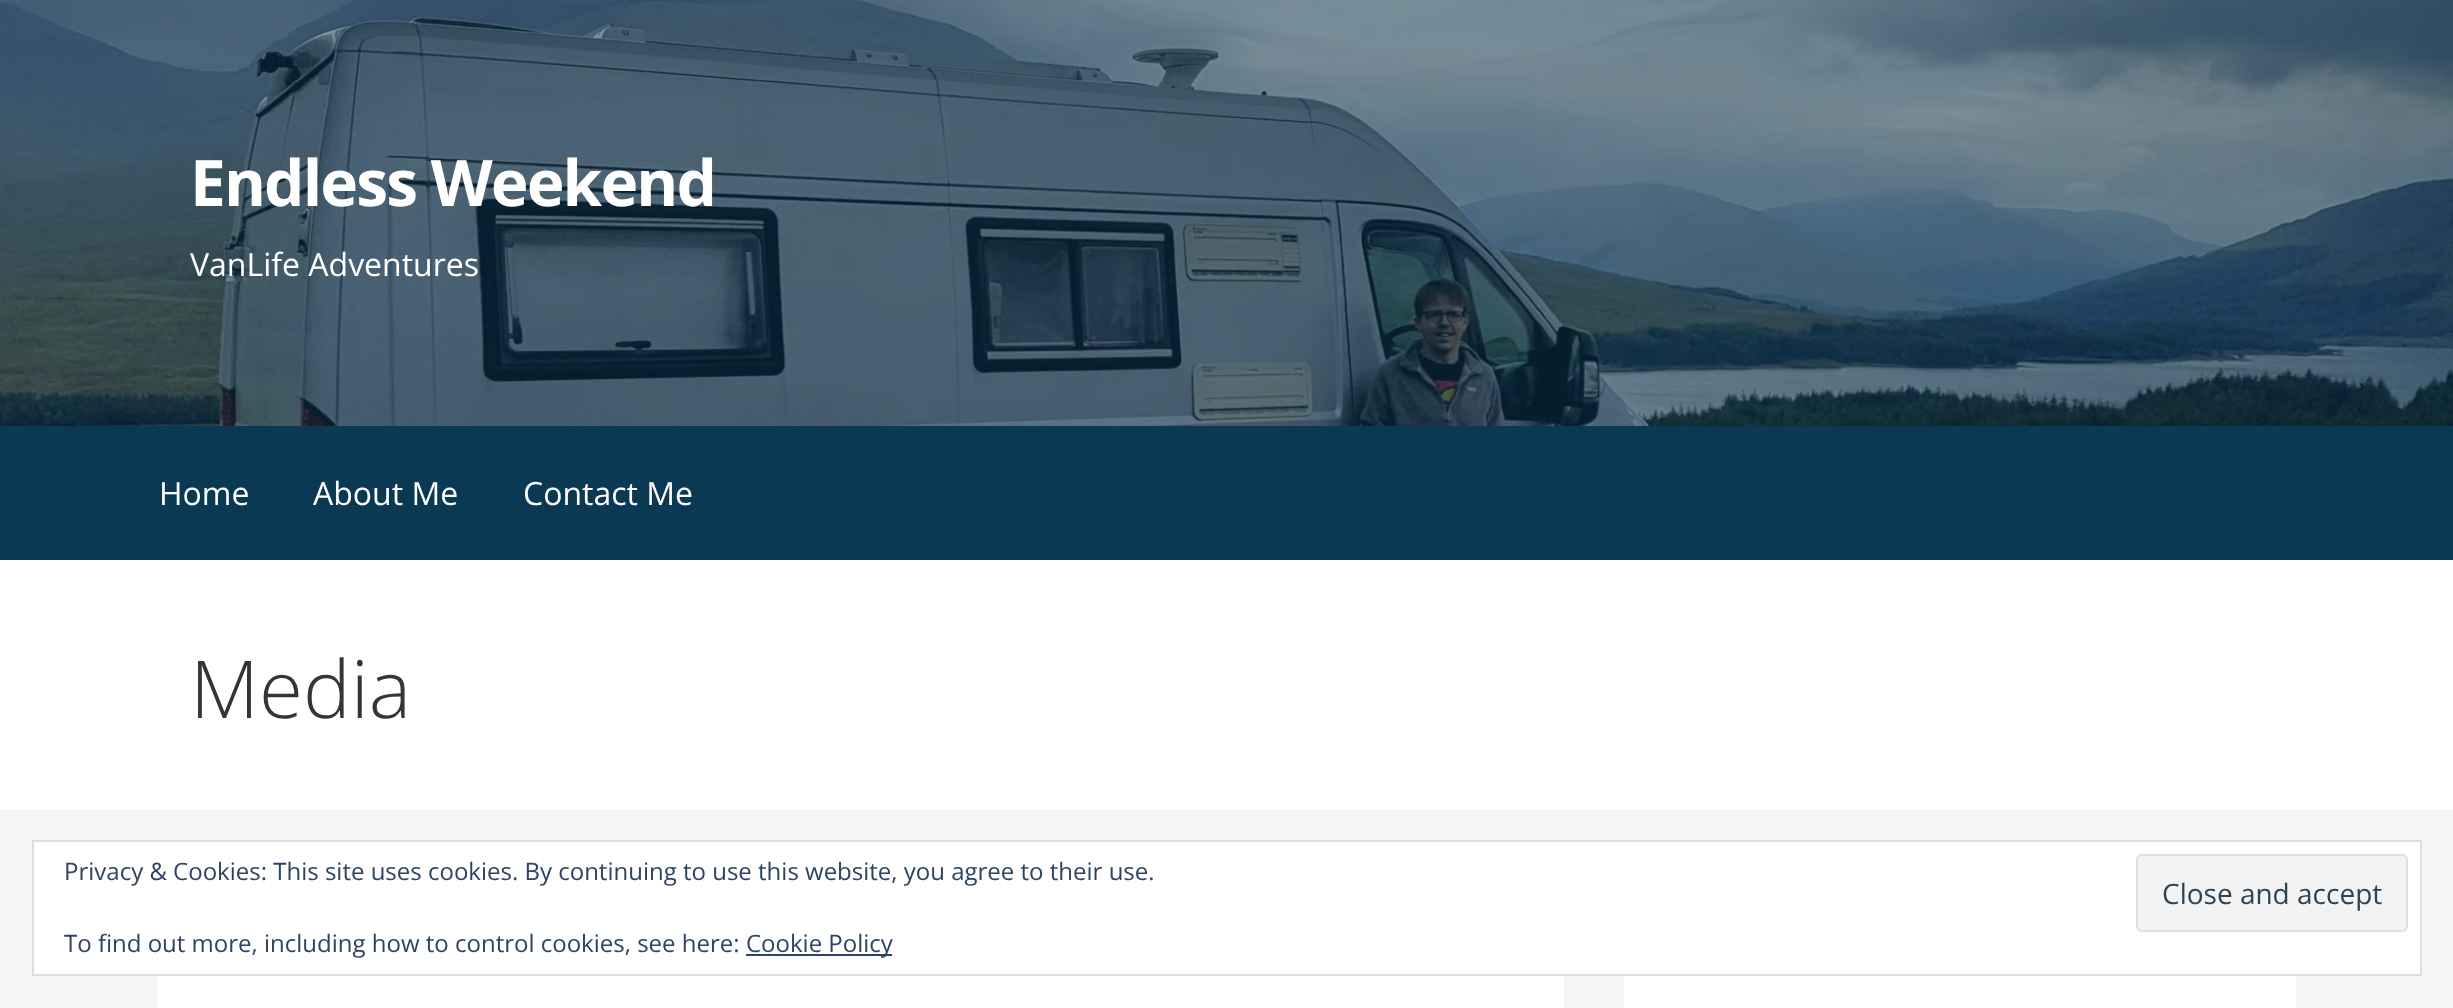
(async () => {
    const canvas = document.querySelector("canvas");
    canvas.width = 2453;
    canvas.height = 1008;
    const context = canvas.getContext("2d");
    context.miterLimit = 4;
    context.fontKerning = "normal";
    function write(s, x, y, font, color) {
        context.font = font;
        context.fillStyle = color;
        context.fillText(s, x, y);
    }
    function block(x, y, w, h, color) {
        context.fillStyle = color;
        context.fillRect(x, y, w, h);
    }
    async function photo(src, x, y, w, h) {
        const img = new Image();
        img.src = src;
        await img.decode();
        context.drawImage(img, x, y, w, h);
    }

    block(0, 0, 2453, 1008, "rgb(245, 245, 245)");
    await photo("media/1.png", 0, 0, 2453, 426);
    context.letterSpacing = "-1.9px";
    write("Endless Weekend", 190, 206, "bold 64px Open Sans", "rgb(255, 255, 255)");
    context.letterSpacing = "0px";
    write("VanLife Adventures", 190, 276, "32px Open Sans", "rgb(255, 255, 255)");
    block(0, 426, 2453, 134, "rgb(11, 57, 84)");
    write("Home", 159, 505, "32px Open Sans", "rgb(255, 255, 255)");
    write("About Me", 313, 505, "32px Open Sans", "rgb(255, 255, 255)");
    write("Contact Me", 523, 505, "32px Open Sans", "rgb(255, 255, 255)");
    block(0, 560, 2453, 250, "rgb(255, 255, 255)");
    write("Media", 190, 718, "300 80px Open Sans", "rgb(53, 53, 53)");
    block(158, 976, 1406, 32, "rgb(255, 255, 255)");
    block(1624, 976, 672, 32, "rgb(255, 255, 255)");
    context.beginPath();
    context.rect(33, 841, 2388, 134);
    context.fill();
    context.strokeStyle = "rgb(222, 222, 222)";
    context.lineWidth = 2;
    context.stroke();
    write("Privacy & Cookies: This site uses cookies. By continuing to use this website, you agree to their use.", 64, 880, "24px Open Sans", "rgb(46, 68, 103)");
    context.fillStyle = "rgb(243, 243, 243)";
    context.beginPath();
    context.roundRect(2137, 855, 270, 76, 5);
    context.fill();
    context.stroke();
    write("Close and accept", 2162, 904, "28px Open Sans", "rgb(46, 68, 83)");
    write("To find out more, including how to control cookies, see here:", 64, 952, "24px Open Sans", "rgb(46, 68, 103)");
    block(746, 954, 146, 2, "rgb(46, 68, 103)");
    write("Cookie Policy", 746, 952, "24px Open Sans", "rgb(46, 68, 103)");
})();
